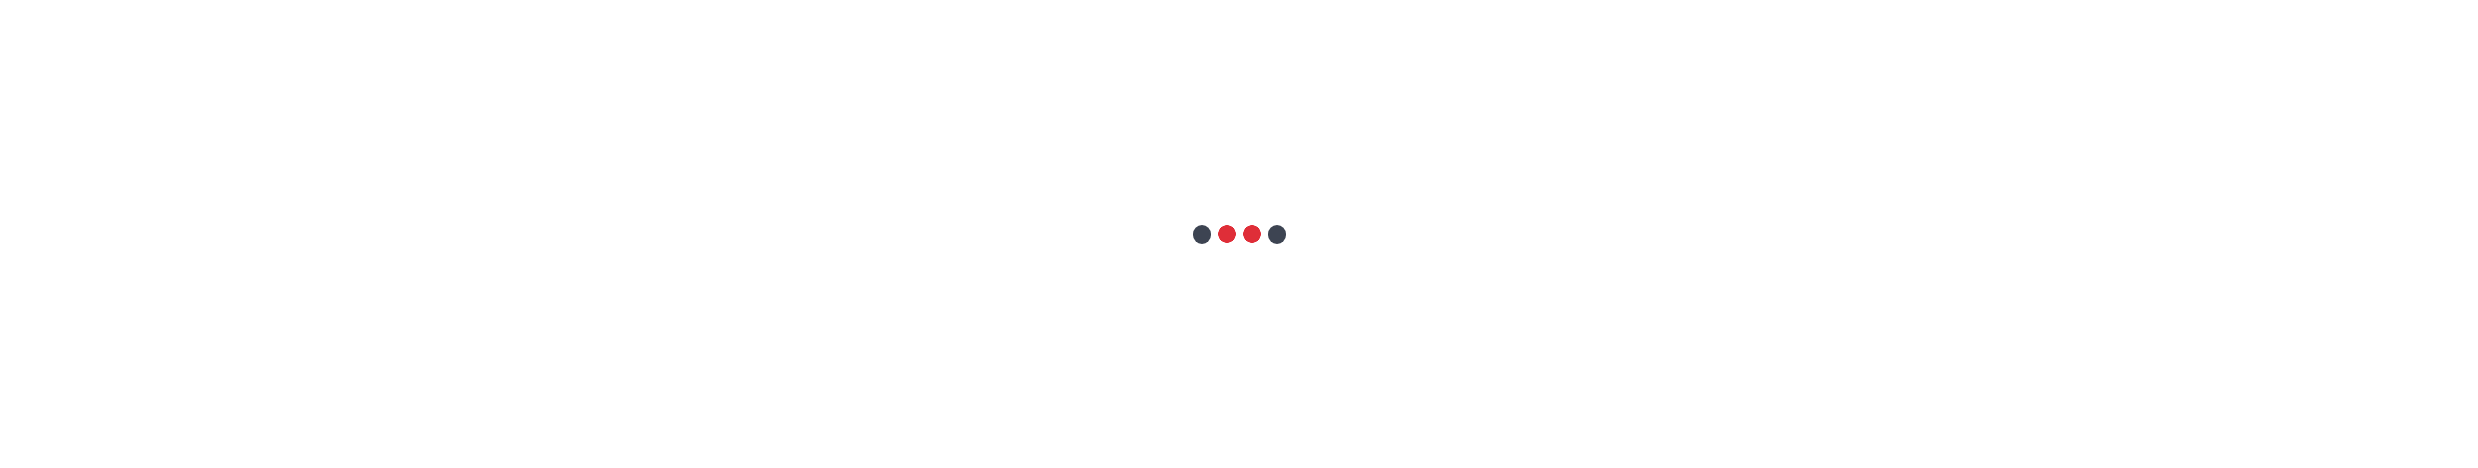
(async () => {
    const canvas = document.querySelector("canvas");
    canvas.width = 2478;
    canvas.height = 468;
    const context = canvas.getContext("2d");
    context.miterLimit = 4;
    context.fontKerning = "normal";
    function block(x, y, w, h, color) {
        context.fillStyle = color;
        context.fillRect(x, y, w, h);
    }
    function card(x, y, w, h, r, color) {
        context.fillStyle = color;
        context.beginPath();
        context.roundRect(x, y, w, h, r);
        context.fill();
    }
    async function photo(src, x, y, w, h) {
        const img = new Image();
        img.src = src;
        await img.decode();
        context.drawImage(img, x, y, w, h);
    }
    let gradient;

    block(0, 0, 2478, 468, "rgb(255, 255, 255)");
    await photo("media/1.png", 0, 0, 2478, 362);
    await photo("media/2.png", 431, 24, 16, 19);
    await photo("media/3.png", 1996, 24, 36, 22);
    await photo("media/4.png", 421, 158, 313, 105);
    await photo("media/5.png", 1113, 106, 946, 218);
    await photo("media/6.png", 2031, 393, 18, 18);
    gradient = context.createRadialGradient(1252, 234, 0, 1252, 234, 9);
    gradient.addColorStop(0.95, "rgb(223, 46, 56)");
    gradient.addColorStop(1, "rgb(255, 255, 255)");
    context.fillStyle = gradient;
    context.fillRect(1243, 225, 18, 18);
    gradient = context.createRadialGradient(1227, 234, 0, 1227, 234, 9);
    gradient.addColorStop(0.95, "rgb(223, 46, 56)");
    gradient.addColorStop(1, "rgb(255, 255, 255)");
    context.fillStyle = gradient;
    context.fillRect(1218, 225, 18, 18);
    card(1193, 225, 18, 19, 9, "rgb(61, 68, 82)");
    card(1268, 225, 18, 19, 9, "rgb(61, 68, 82)");
})();
